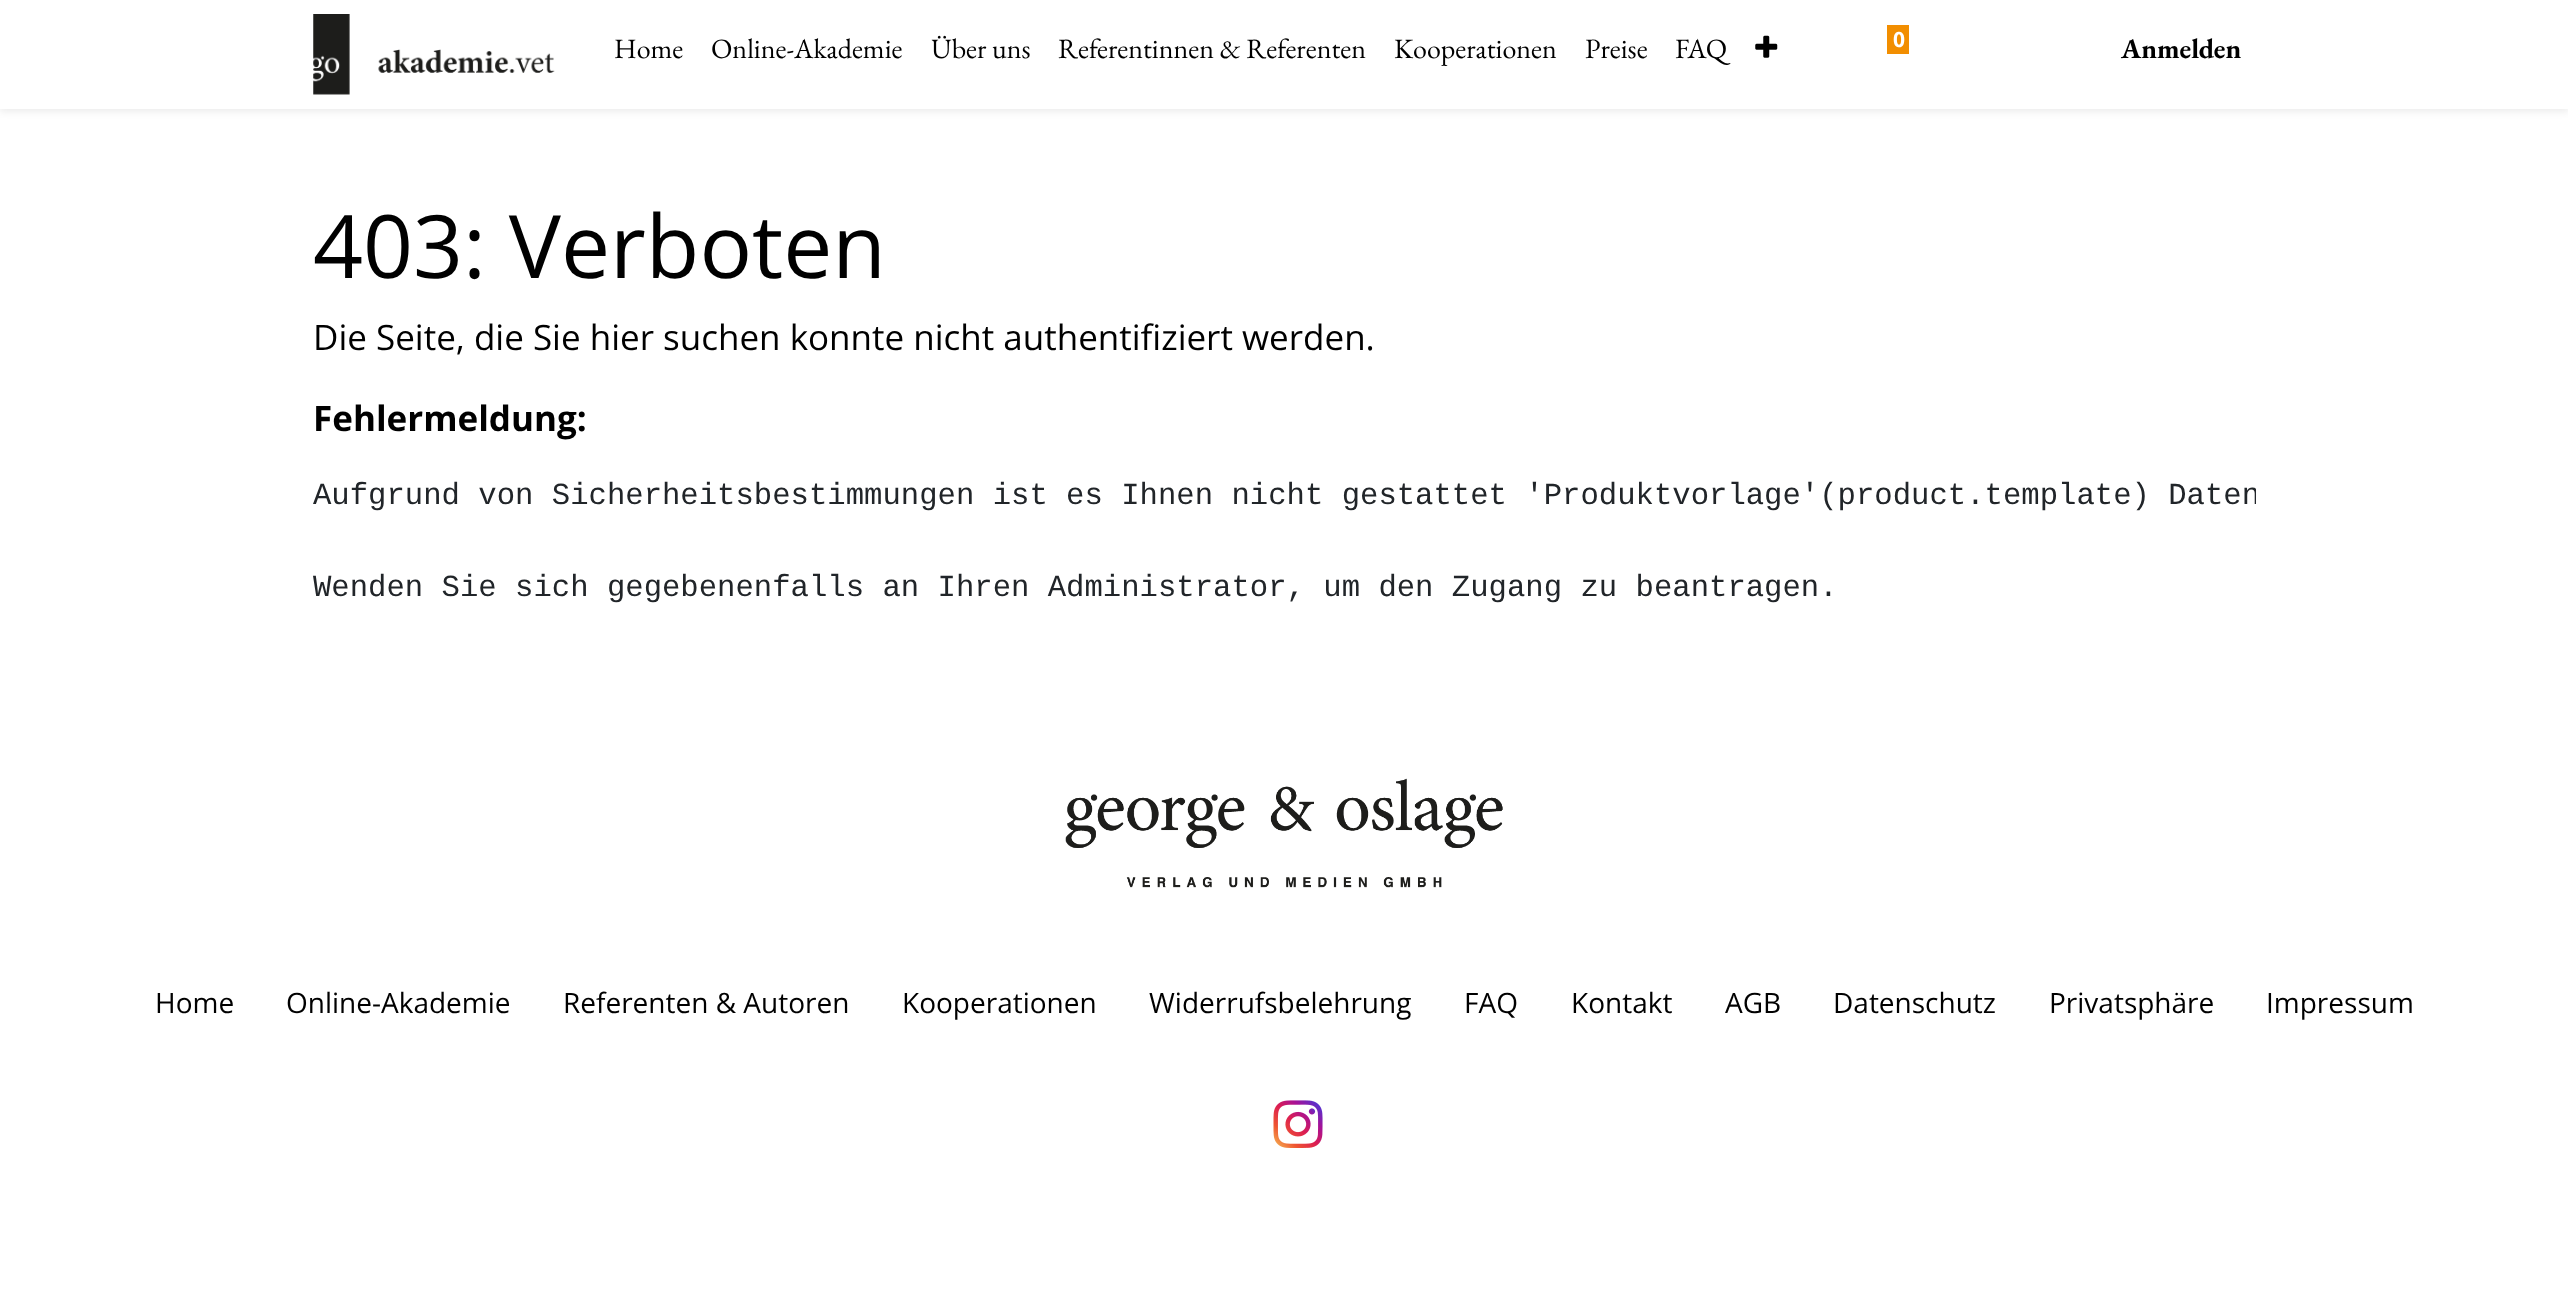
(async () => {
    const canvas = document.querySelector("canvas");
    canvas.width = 2568;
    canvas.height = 1291;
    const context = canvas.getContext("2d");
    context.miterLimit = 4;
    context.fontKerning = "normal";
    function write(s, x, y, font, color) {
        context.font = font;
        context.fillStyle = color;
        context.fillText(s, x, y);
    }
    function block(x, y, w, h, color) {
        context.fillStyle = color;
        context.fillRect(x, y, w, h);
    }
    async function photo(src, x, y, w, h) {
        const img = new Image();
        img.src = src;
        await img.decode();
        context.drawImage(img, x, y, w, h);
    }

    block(0, 0, 2568, 1291, "rgb(255, 255, 255)");
    context.fillStyle = "rgba(0, 0, 0, 0.07)";
    context.filter = "blur(3.5px)";
    context.beginPath();
    context.rect(0, 4, 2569, 108);
    context.fill();
    context.filter = "none";
    block(0, 0, 2568, 109, "rgb(255, 255, 255)");
    await photo("media/1.png", 313, 14, 242, 81);
    write("Home", 614, 58, "28px EB Garamond", "rgb(0, 0, 0)");
    write("Online-Akademie", 711, 58, "28px EB Garamond", "rgb(0, 0, 0)");
    write("Über uns", 931, 58, "28px EB Garamond", "rgb(0, 0, 0)");
    write("Referentinnen & Referenten", 1058, 58, "28px EB Garamond", "rgb(0, 0, 0)");
    write("Kooperationen", 1394, 58, "28px EB Garamond", "rgb(0, 0, 0)");
    write("Preise", 1585, 58, "28px EB Garamond", "rgb(0, 0, 0)");
    write("FAQ", 1675, 58, "28px EB Garamond", "rgb(0, 0, 0)");
    await photo("media/2.png", 1755, 35, 23, 23);
    block(1887, 25, 22, 29, "rgb(242, 142, 0)");
    write("0", 1893, 47, "bold 21px Open Sans", "rgb(255, 255, 255)");
    write("Anmelden", 2121, 58, "bold 28px EB Garamond", "rgb(0, 0, 0)");
    write("403: Verboten", 313, 278, "87.5px Open Sans", "rgb(0, 0, 0)");
    write("Die Seite, die Sie hier suchen konnte nicht authentifiziert werden.", 313, 350, "35px Open Sans", "rgb(0, 0, 0)");
    write("Fehlermeldung:", 313, 431, "bold 35px Open Sans", "rgb(0, 0, 0)");
    context.save();
    context.beginPath();
    context.rect(313, 473, 1943, 138);
    context.clip();
    write("Aufgrund von Sicherheitsbestimmungen ist es Ihnen nicht gestattet 'Produktvorlage'(product.template) Daten", 313, 504, "30.62px Liberation Mono", "rgb(33, 37, 41)");
    context.restore();
    write("Wenden Sie sich gegebenenfalls an Ihren Administrator, um den Zugang zu beantragen.", 313, 596, "30.62px Liberation Mono", "rgb(33, 37, 41)");
    await photo("media/3.png", 1065, 778, 438, 110);
    write("Home", 155, 1013, "28px Open Sans", "rgb(0, 0, 0)");
    write("Online-Akademie", 286, 1013, "28px Open Sans", "rgb(0, 0, 0)");
    write("Referenten & Autoren", 563, 1013, "28px Open Sans", "rgb(0, 0, 0)");
    write("Kooperationen", 902, 1013, "28px Open Sans", "rgb(0, 0, 0)");
    write("Widerrufsbelehrung", 1149, 1013, "28px Open Sans", "rgb(0, 0, 0)");
    write("FAQ", 1464, 1013, "28px Open Sans", "rgb(0, 0, 0)");
    write("Kontakt", 1571, 1013, "28px Open Sans", "rgb(0, 0, 0)");
    write("AGB", 1725, 1013, "28px Open Sans", "rgb(0, 0, 0)");
    write("Datenschutz", 1833, 1013, "28px Open Sans", "rgb(0, 0, 0)");
    write("Privatsphäre", 2049, 1013, "28px Open Sans", "rgb(0, 0, 0)");
    write("Impressum", 2266, 1013, "28px Open Sans", "rgb(0, 0, 0)");
    await photo("media/4.png", 1273, 1100, 50, 48);
})();
